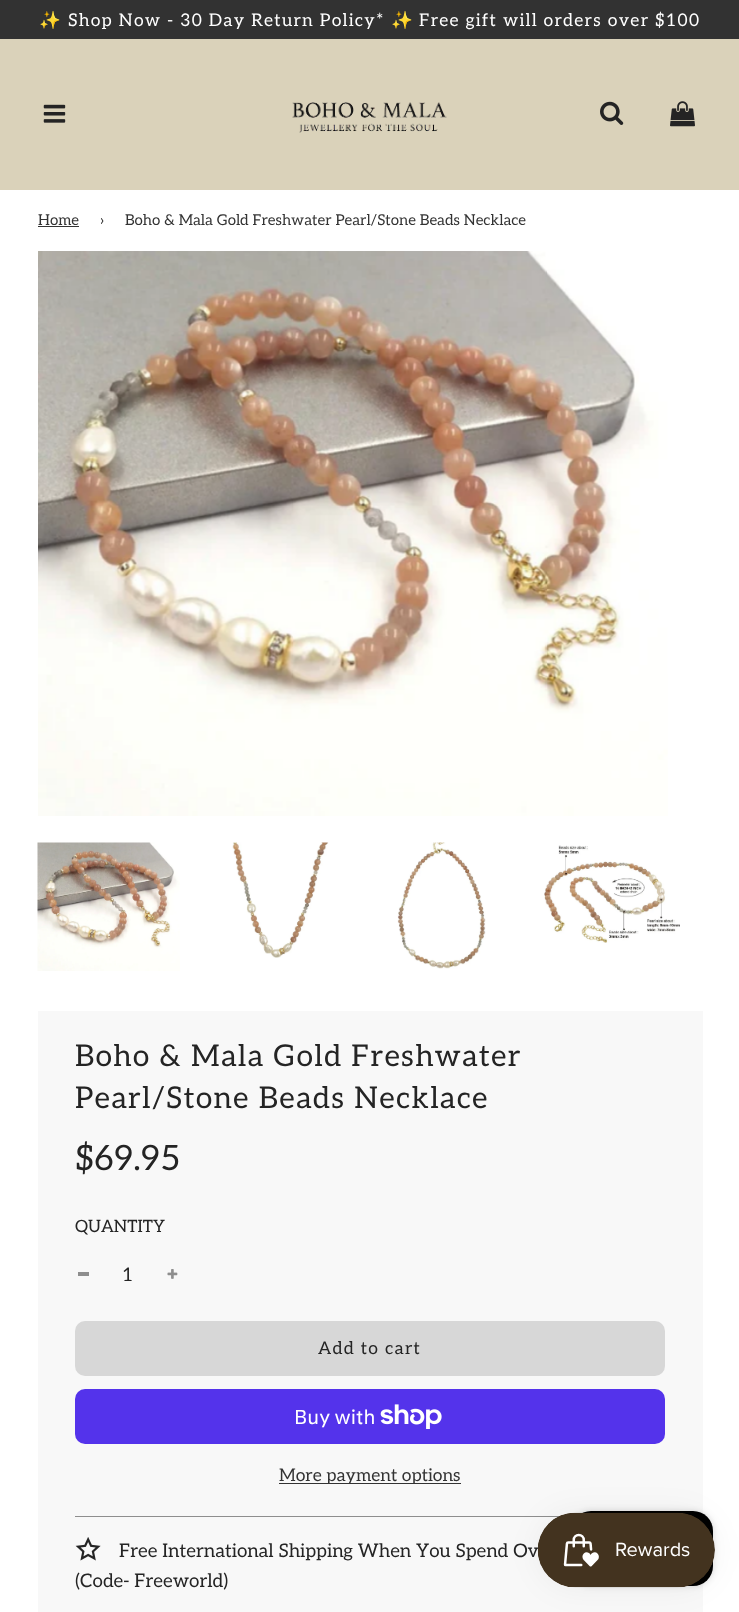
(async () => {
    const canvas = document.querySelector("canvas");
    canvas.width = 739;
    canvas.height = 1612;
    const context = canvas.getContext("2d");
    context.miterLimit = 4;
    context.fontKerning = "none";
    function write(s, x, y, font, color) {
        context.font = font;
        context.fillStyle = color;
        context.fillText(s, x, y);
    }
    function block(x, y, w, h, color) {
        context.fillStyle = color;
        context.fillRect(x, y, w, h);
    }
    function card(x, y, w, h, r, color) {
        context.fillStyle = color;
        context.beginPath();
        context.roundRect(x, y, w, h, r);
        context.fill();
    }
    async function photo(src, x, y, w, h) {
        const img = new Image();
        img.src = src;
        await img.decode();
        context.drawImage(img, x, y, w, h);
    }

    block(0, 0, 739, 1612, "rgb(255, 255, 255)");
    block(0, 0, 739, 39, "rgb(50, 50, 50)");
    context.letterSpacing = "1.25px";
    write("✨", 39, 26, "17.5px Noto Color Emoji", "rgb(255, 255, 255)");
    write("Shop Now - 30 Day Return Policy*", 68, 26, "17.5px Aleo", "rgb(255, 255, 255)");
    write("✨", 391, 26, "17.5px Noto Color Emoji", "rgb(255, 255, 255)");
    write("Free gift will orders over $100", 419, 26, "17.5px Aleo", "rgb(255, 255, 255)");
    block(0, 39, 739, 151, "rgb(218, 210, 186)");
    await photo("media/1.png", 43, 104, 23, 19);
    await photo("media/2.png", 292, 102, 155, 31);
    await photo("media/3.png", 600, 101, 24, 24);
    await photo("media/4.png", 670, 101, 25, 26);
    context.letterSpacing = "0px";
    write("Home", 38, 225, "15px Aleo", "rgb(51, 51, 51)");
    block(38, 226, 41, 1, "rgb(51, 51, 51)");
    write("›", 100, 225, "15px Aleo", "rgb(36, 36, 36)");
    write("Boho & Mala Gold Freshwater Pearl/Stone Beads Necklace", 125, 225, "15px Aleo", "rgb(51, 51, 51)");
    await photo("media/5.png", 38, 251, 630, 565);
    await photo("media/6.png", 37, 842, 143, 129);
    await photo("media/7.png", 232, 842, 97, 116);
    await photo("media/8.png", 397, 842, 89, 127);
    await photo("media/9.png", 544, 845, 136, 98);
    block(38, 1011, 665, 601, "rgb(248, 248, 248)");
    context.letterSpacing = "1.25px";
    write("Boho & Mala Gold Freshwater", 75, 1066, "30px Aleo", "rgb(36, 36, 36)");
    write("Pearl/Stone Beads Necklace", 75, 1108, "30px Aleo", "rgb(36, 36, 36)");
    context.letterSpacing = "0px";
    write("$69.95", 75, 1170, "35px Aleo", "rgb(36, 36, 36)");
    write("QUANTITY", 75, 1232, "17px Aleo", "rgb(36, 36, 36)");
    block(78, 1272, 11, 4, "rgb(142, 142, 142)");
    write("1", 122, 1281, "18.75px Aleo", "rgb(36, 36, 36)");
    await photo("media/10.png", 167, 1269, 11, 10);
    card(75, 1321, 590, 55, 10, "rgb(215, 215, 215)");
    context.letterSpacing = "1.25px";
    write("Add to cart", 318, 1354, "17.5px Aleo", "rgb(36, 36, 36)");
    card(75, 1389, 590, 55, 10, "rgb(84, 51, 235)");
    context.letterSpacing = "0px";
    write("Buy with", 294, 1424, "20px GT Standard", "rgb(255, 255, 255)");
    await photo("media/11.png", 380, 1404, 62, 25);
    block(279, 1483, 182, 1, "rgb(51, 51, 51)");
    write("More payment options", 279, 1481, "17.5px Aleo", "rgb(51, 51, 51)");
    block(75, 1516, 485, 1, "rgb(142, 142, 142)");
    await photo("media/12.png", 75, 1537, 26, 24);
    write("Free International Shipping When You Spend Ov", 119, 1557, "18.75px Aleo", "rgb(36, 36, 36)");
    write("(Code- Freeworld)", 75, 1587, "18.75px Aleo", "rgb(36, 36, 36)");
    context.fillStyle = "rgba(0, 0, 0, 0.15)";
    context.filter = "blur(3px)";
    context.beginPath();
    context.roundRect(571, 1511, 142, 75, 20);
    context.fill();
    context.filter = "none";
    card(571, 1511, 142, 75, 20, "rgb(0, 0, 0)");
    context.fillStyle = "rgba(0, 0, 0, 0.05)";
    context.filter = "blur(15.5px)";
    context.beginPath();
    context.roundRect(538, 1513, 177, 75, 37.5);
    context.fill();
    context.filter = "none";
    await photo("media/13.png", 537, 1512, 178, 76);
})();
